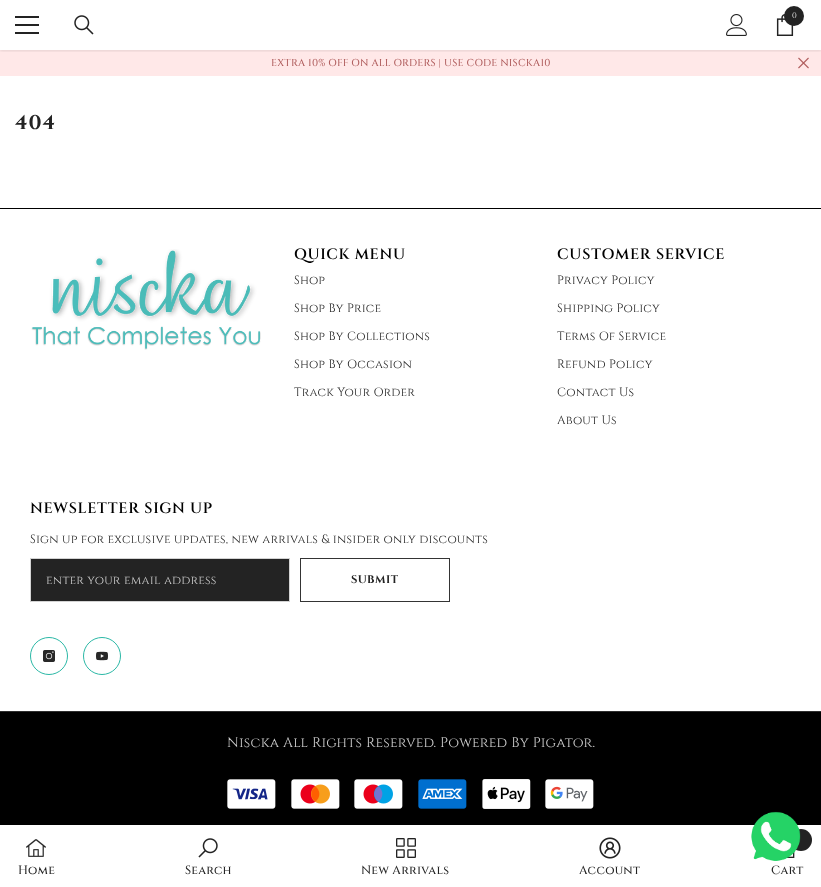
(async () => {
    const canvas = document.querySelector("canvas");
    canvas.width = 821;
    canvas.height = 887;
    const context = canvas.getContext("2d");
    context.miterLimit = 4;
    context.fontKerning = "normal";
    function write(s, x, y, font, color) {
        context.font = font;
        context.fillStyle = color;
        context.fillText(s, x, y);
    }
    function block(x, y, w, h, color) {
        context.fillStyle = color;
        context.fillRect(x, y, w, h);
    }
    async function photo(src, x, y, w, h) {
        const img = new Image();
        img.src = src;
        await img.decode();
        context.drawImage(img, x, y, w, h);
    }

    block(0, 0, 821, 887, "rgb(255, 255, 255)");
    block(0, 50, 821, 26, "rgb(255, 232, 232)");
    context.save();
    context.beginPath();
    context.rect(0, 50, 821, 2);
    context.clip();
    context.fillStyle = "rgba(0, 0, 0, 0.1)";
    context.filter = "blur(1.5px)";
    context.beginPath();
    context.rect(0, 1, 821, 50);
    context.fill();
    context.filter = "none";
    context.restore();
    block(15, 24, 24, 2, "rgb(35, 35, 35)");
    block(15, 16, 24, 2, "rgb(35, 35, 35)");
    block(15, 32, 24, 2, "rgb(35, 35, 35)");
    await photo("media/1.png", 74, 15, 20, 20);
    await photo("media/2.png", 726, 14, 21, 22);
    await photo("media/3.png", 776, 14, 18, 22);
    context.beginPath();
    context.arc(794, 16, 10, 0, Math.PI * 2);
    context.fill();
    write("0", 792, 18, "8px Cinzel", "rgb(255, 255, 255)");
    context.letterSpacing = "0.25px";
    write("EXTRA 10% OFF ON ALL ORDERS | USE CODE NISCKA10", 271, 66, "500 10px Cinzel", "rgb(176, 93, 93)");
    await photo("media/4.png", 798, 57, 11, 12);
    context.letterSpacing = "1px";
    write("404", 15, 129, "bold 20px Cinzel", "rgb(35, 35, 35)");
    block(0, 208, 821, 1, "rgb(0, 0, 0)");
    await photo("media/5.png", 31, 249, 230, 101);
    context.letterSpacing = "0.75px";
    write("QUICK MENU", 294, 259, "600 15px Cinzel", "rgb(0, 0, 0)");
    context.letterSpacing = "0.25px";
    write("Shop", 294, 284, "12px Cinzel", "rgb(35, 35, 35)");
    write("Shop By Price", 294, 312, "12px Cinzel", "rgb(35, 35, 35)");
    write("Shop By Collections", 294, 340, "12px Cinzel", "rgb(35, 35, 35)");
    write("Shop By Occasion", 294, 368, "12px Cinzel", "rgb(35, 35, 35)");
    write("Track Your Order", 294, 396, "12px Cinzel", "rgb(35, 35, 35)");
    context.letterSpacing = "0.75px";
    write("CUSTOMER SERVICE", 557, 259, "600 15px Cinzel", "rgb(0, 0, 0)");
    context.letterSpacing = "0.25px";
    write("Privacy Policy", 557, 284, "12px Cinzel", "rgb(35, 35, 35)");
    write("Shipping Policy", 557, 312, "12px Cinzel", "rgb(35, 35, 35)");
    write("Terms Of Service", 557, 340, "12px Cinzel", "rgb(35, 35, 35)");
    write("Refund Policy", 557, 368, "12px Cinzel", "rgb(35, 35, 35)");
    write("Contact Us", 557, 396, "12px Cinzel", "rgb(35, 35, 35)");
    write("About Us", 557, 424, "12px Cinzel", "rgb(35, 35, 35)");
    context.letterSpacing = "0.75px";
    write("NEWSLETTER SIGN UP", 30, 513, "600 15px Cinzel", "rgb(0, 0, 0)");
    context.letterSpacing = "0.25px";
    write("Sign up for exclusive updates, new arrivals & insider only discounts", 30, 543, "12px Cinzel", "rgb(35, 35, 35)");
    context.beginPath();
    context.rect(30.5, 558.5, 259, 43);
    context.fill();
    context.strokeStyle = "rgb(211, 211, 211)";
    context.stroke();
    write("enter your email address", 46, 584, "12px Cinzel", "rgb(207, 207, 207)");
    context.strokeStyle = "rgb(52, 52, 52)";
    context.strokeRect(300.5, 558.5, 149, 43);
    context.letterSpacing = "0.5px";
    write("SUBMIT", 351, 583, "bold 11px Cinzel", "rgb(35, 35, 35)");
    context.beginPath();
    context.arc(49, 656, 18.5, 0, Math.PI * 2);
    context.strokeStyle = "rgb(43, 184, 166)";
    context.stroke();
    await photo("media/6.png", 43, 650, 12, 12);
    context.beginPath();
    context.arc(102, 656, 18.5, 0, Math.PI * 2);
    context.stroke();
    await photo("media/7.png", 96, 651, 12, 10);
    block(0, 712, 821, 113, "rgb(0, 0, 0)");
    block(0, 711, 821, 1, "rgb(46, 46, 46)");
    context.letterSpacing = "0.25px";
    write("Niscka All Rights Reserved. Powered By Pigator.", 227, 747, "14px Cinzel", "rgb(207, 207, 207)");
    await photo("media/8.png", 227, 779, 49, 30);
    await photo("media/9.png", 291, 779, 49, 30);
    await photo("media/10.png", 354, 779, 49, 30);
    await photo("media/11.png", 418, 779, 49, 30);
    await photo("media/12.png", 482, 779, 49, 30);
    await photo("media/13.png", 545, 779, 49, 30);
    await photo("media/14.png", 26, 839, 20, 18);
    write("Home", 18, 874, "500 12px Cinzel", "rgb(35, 35, 35)");
    await photo("media/15.png", 198, 838, 20, 20);
    write("Search", 185, 874, "500 12px Cinzel", "rgb(35, 35, 35)");
    await photo("media/16.png", 396, 838, 20, 20);
    write("New Arrivals", 361, 874, "500 12px Cinzel", "rgb(35, 35, 35)");
    await photo("media/17.png", 599, 837, 22, 22);
    write("Account", 579, 874, "500 12px Cinzel", "rgb(35, 35, 35)");
    await photo("media/18.png", 786, 850, 9, 8);
    context.beginPath();
    context.arc(801, 840, 11, 0, Math.PI * 2);
    context.fill();
    write("Cart", 771, 874, "500 12px Cinzel", "rgb(35, 35, 35)");
    await photo("media/19.png", 751, 811, 50, 50);
})();
